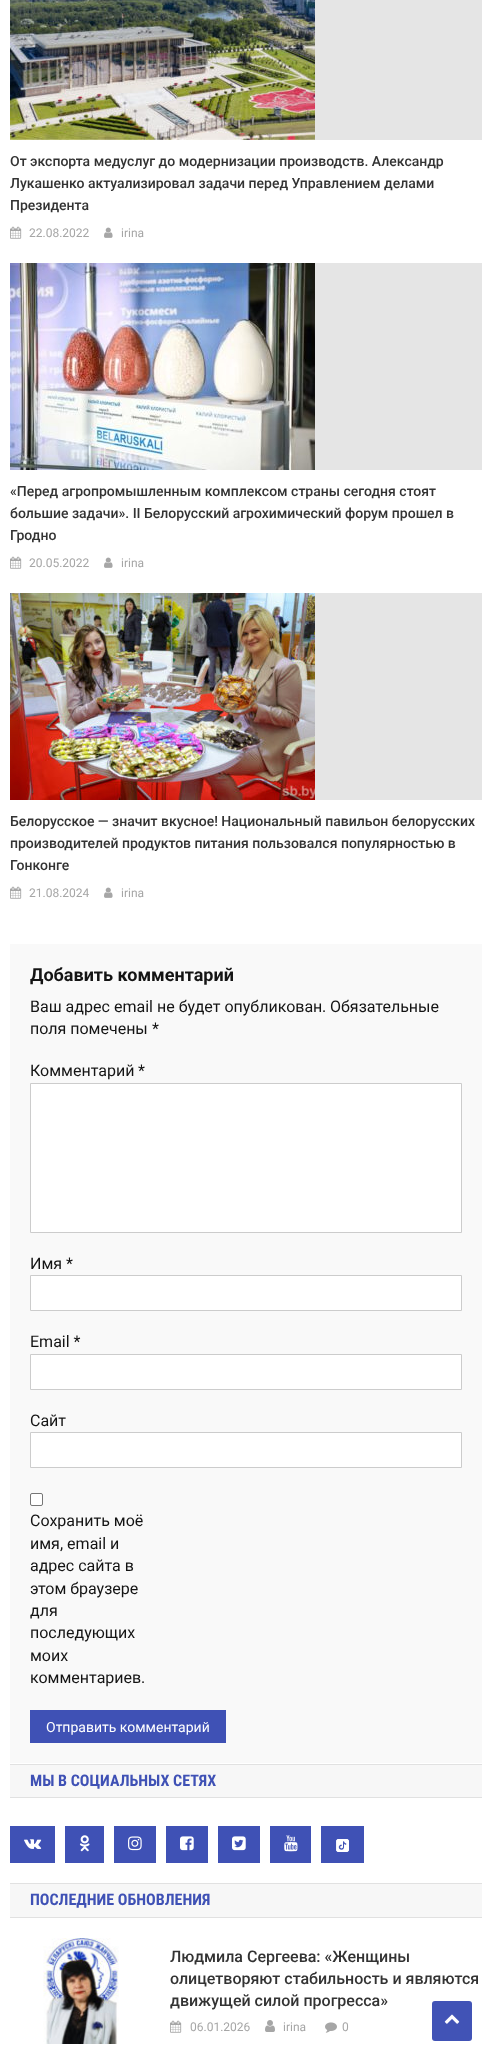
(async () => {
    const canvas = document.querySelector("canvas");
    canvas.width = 492;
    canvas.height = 2061;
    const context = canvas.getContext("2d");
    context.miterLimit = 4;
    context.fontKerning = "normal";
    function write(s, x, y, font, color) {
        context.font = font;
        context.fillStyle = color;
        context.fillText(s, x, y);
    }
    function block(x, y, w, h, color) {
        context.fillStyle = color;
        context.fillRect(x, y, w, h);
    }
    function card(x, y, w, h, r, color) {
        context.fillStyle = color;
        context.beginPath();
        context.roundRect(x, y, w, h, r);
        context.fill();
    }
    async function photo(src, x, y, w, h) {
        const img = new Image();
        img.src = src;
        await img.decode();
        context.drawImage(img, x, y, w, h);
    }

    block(0, 0, 492, 2061, "rgb(255, 255, 255)");
    block(315, 0, 167, 140, "rgb(229, 229, 229)");
    await photo("media/1.png", 10, 0, 305, 140);
    write("От экспорта медуслуг до модернизации производств. Александр", 10, 166, "500 14px Roboto", "rgb(51, 51, 51)");
    write("Лукашенко актуализировал задачи перед Управлением делами", 10, 188, "500 14px Roboto", "rgb(51, 51, 51)");
    write("Президента", 10, 210, "500 14px Roboto", "rgb(51, 51, 51)");
    await photo("media/2.png", 10, 226, 12, 13);
    write("22.08.2022", 29, 237, "12px Roboto", "rgb(166, 166, 166)");
    await photo("media/3.png", 104, 227, 9, 11);
    write("irina", 121, 237, "12px Roboto", "rgb(166, 166, 166)");
    block(315, 263, 167, 207, "rgb(229, 229, 229)");
    await photo("media/4.png", 10, 263, 305, 207);
    write("«Перед агропромышленным комплексом страны сегодня стоят", 10, 496, "500 14px Roboto", "rgb(51, 51, 51)");
    write("большие задачи». II Белорусский агрохимический форум прошел в", 10, 518, "500 14px Roboto", "rgb(51, 51, 51)");
    write("Гродно", 10, 540, "500 14px Roboto", "rgb(51, 51, 51)");
    await photo("media/2.png", 10, 556, 12, 13);
    write("20.05.2022", 29, 567, "12px Roboto", "rgb(166, 166, 166)");
    await photo("media/3.png", 104, 557, 9, 11);
    write("irina", 121, 567, "12px Roboto", "rgb(166, 166, 166)");
    block(315, 593, 167, 207, "rgb(229, 229, 229)");
    await photo("media/5.png", 10, 593, 305, 207);
    write("Белорусское — значит вкусное! Национальный павильон белорусских", 10, 826, "500 14px Roboto", "rgb(51, 51, 51)");
    write("производителей продуктов питания пользовался популярностью в", 10, 848, "500 14px Roboto", "rgb(51, 51, 51)");
    write("Гонконге", 10, 870, "500 14px Roboto", "rgb(51, 51, 51)");
    await photo("media/2.png", 10, 886, 12, 13);
    write("21.08.2024", 29, 897, "12px Roboto", "rgb(166, 166, 166)");
    await photo("media/3.png", 104, 887, 9, 11);
    write("irina", 121, 897, "12px Roboto", "rgb(166, 166, 166)");
    block(10, 944, 472, 819, "rgb(249, 249, 249)");
    write("Добавить комментарий", 30, 981, "bold 18px Roboto", "rgb(20, 20, 20)");
    write("Ваш адрес", 30, 1012, "16px 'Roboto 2'", "rgb(20, 20, 20)");
    write("email", 114, 1012, "16px Roboto", "rgb(20, 20, 20)");
    write("не будет опубликован", 157, 1012, "16px 'Roboto 2'", "rgb(20, 20, 20)");
    write(".", 322, 1012, "16px Roboto", "rgb(20, 20, 20)");
    write("Обязательные", 330, 1012, "16px 'Roboto 2'", "rgb(20, 20, 20)");
    write("поля помечены", 30, 1034, "16px 'Roboto 2'", "rgb(20, 20, 20)");
    write("*", 152, 1034, "16px Roboto", "rgb(20, 20, 20)");
    write("Комментарий", 30, 1076, "16px 'Roboto 2'", "rgb(20, 20, 20)");
    write("*", 138, 1076, "16px Roboto", "rgb(20, 20, 20)");
    context.fillStyle = "rgb(255, 255, 255)";
    context.beginPath();
    context.rect(30.5, 1083.5, 431, 149);
    context.fill();
    context.strokeStyle = "rgb(204, 204, 204)";
    context.stroke();
    write("Имя", 30, 1269, "16px 'Roboto 2'", "rgb(20, 20, 20)");
    write("*", 66, 1269, "16px Roboto", "rgb(20, 20, 20)");
    context.fillStyle = "rgb(255, 255, 255)";
    context.beginPath();
    context.rect(30.5, 1275.5, 431, 35);
    context.fill();
    context.stroke();
    write("Email *", 30, 1347, "16px Roboto", "rgb(20, 20, 20)");
    context.fillStyle = "rgb(255, 255, 255)";
    context.beginPath();
    context.rect(30.5, 1354.5, 431, 35);
    context.fill();
    context.stroke();
    write("Сайт", 30, 1426, "16px 'Roboto 2'", "rgb(20, 20, 20)");
    context.fillStyle = "rgb(255, 255, 255)";
    context.beginPath();
    context.rect(30.5, 1432.5, 431, 35);
    context.fill();
    context.stroke();
    context.beginPath();
    context.roundRect(30.5, 1493.5, 12, 12, 1.5);
    context.fill();
    context.strokeStyle = "rgb(118, 118, 118)";
    context.stroke();
    write("Сохранить моё", 30, 1526, "16px 'Roboto 2'", "rgb(20, 20, 20)");
    write("имя", 30, 1549, "16px 'Roboto 2'", "rgb(20, 20, 20)");
    write(", email", 60, 1549, "16px Roboto", "rgb(20, 20, 20)");
    write("и", 110, 1549, "16px 'Roboto 2'", "rgb(20, 20, 20)");
    write("адрес сайта в", 30, 1571, "16px 'Roboto 2'", "rgb(20, 20, 20)");
    write("этом браузере", 30, 1594, "16px 'Roboto 2'", "rgb(20, 20, 20)");
    write("для", 30, 1616, "16px 'Roboto 2'", "rgb(20, 20, 20)");
    write("последующих", 30, 1638, "16px 'Roboto 2'", "rgb(20, 20, 20)");
    write("моих", 30, 1661, "16px 'Roboto 2'", "rgb(20, 20, 20)");
    write("комментариев", 30, 1683, "16px 'Roboto 2'", "rgb(20, 20, 20)");
    write(".", 141, 1683, "16px Roboto", "rgb(20, 20, 20)");
    block(30, 1710, 196, 33, "rgb(63, 81, 181)");
    write("Отправить комментарий", 46, 1732, "14px 'Roboto 2'", "rgb(255, 255, 255)");
    block(10, 1765, 472, 32, "rgb(247, 247, 247)");
    block(10, 1764, 472, 1, "rgb(225, 225, 225)");
    block(10, 1797, 472, 1, "rgb(225, 225, 225)");
    write("МЫ В СОЦИАЛЬНЫХ СЕТЯХ", 30, 1786, "bold 16px Roboto Condensed", "rgb(63, 81, 181)");
    block(10, 1826, 45, 37, "rgb(63, 81, 181)");
    await photo("media/6.png", 24, 1839, 18, 10);
    block(65, 1826, 39, 37, "rgb(63, 81, 181)");
    await photo("media/7.png", 79, 1835, 11, 17);
    block(114, 1826, 42, 37, "rgb(63, 81, 181)");
    await photo("media/8.png", 128, 1836, 14, 15);
    block(166, 1826, 42, 37, "rgb(63, 81, 181)");
    await photo("media/9.png", 180, 1836, 14, 15);
    block(218, 1826, 42, 37, "rgb(63, 81, 181)");
    await photo("media/10.png", 232, 1836, 14, 15);
    block(270, 1826, 41, 37, "rgb(63, 81, 181)");
    await photo("media/11.png", 284, 1835, 14, 17);
    block(321, 1826, 43, 37, "rgb(63, 81, 181)");
    await photo("media/12.png", 336, 1839, 13, 13);
    block(10, 1884, 472, 33, "rgb(247, 247, 247)");
    block(10, 1883, 472, 1, "rgb(225, 225, 225)");
    block(10, 1917, 472, 1, "rgb(225, 225, 225)");
    write("ПОСЛЕДНИЕ ОБНОВЛЕНИЯ", 30, 1905, "bold 16px Roboto Condensed", "rgb(63, 81, 181)");
    await photo("media/13.png", 10, 1938, 142, 106);
    write("Людмила Сергеева: «Женщины", 170, 1962, "500 16px Roboto", "rgb(51, 51, 51)");
    write("олицетворяют стабильность и являются", 170, 1984, "500 16px Roboto", "rgb(51, 51, 51)");
    write("движущей силой прогресса»", 170, 2006, "500 16px Roboto", "rgb(51, 51, 51)");
    await photo("media/2.png", 170, 2020, 12, 13);
    write("06.01.2026", 190, 2031, "12px Roboto", "rgb(166, 166, 166)");
    await photo("media/14.png", 265, 2020, 10, 12);
    write("irina", 283, 2031, "12px Roboto", "rgb(166, 166, 166)");
    await photo("media/15.png", 325, 2022, 12, 11);
    write("0", 342, 2031, "12px Roboto", "rgb(166, 166, 166)");
    card(432, 2001, 40, 40, 3, "rgb(65, 83, 182)");
    await photo("media/16.png", 444, 2014, 16, 10);
})();
